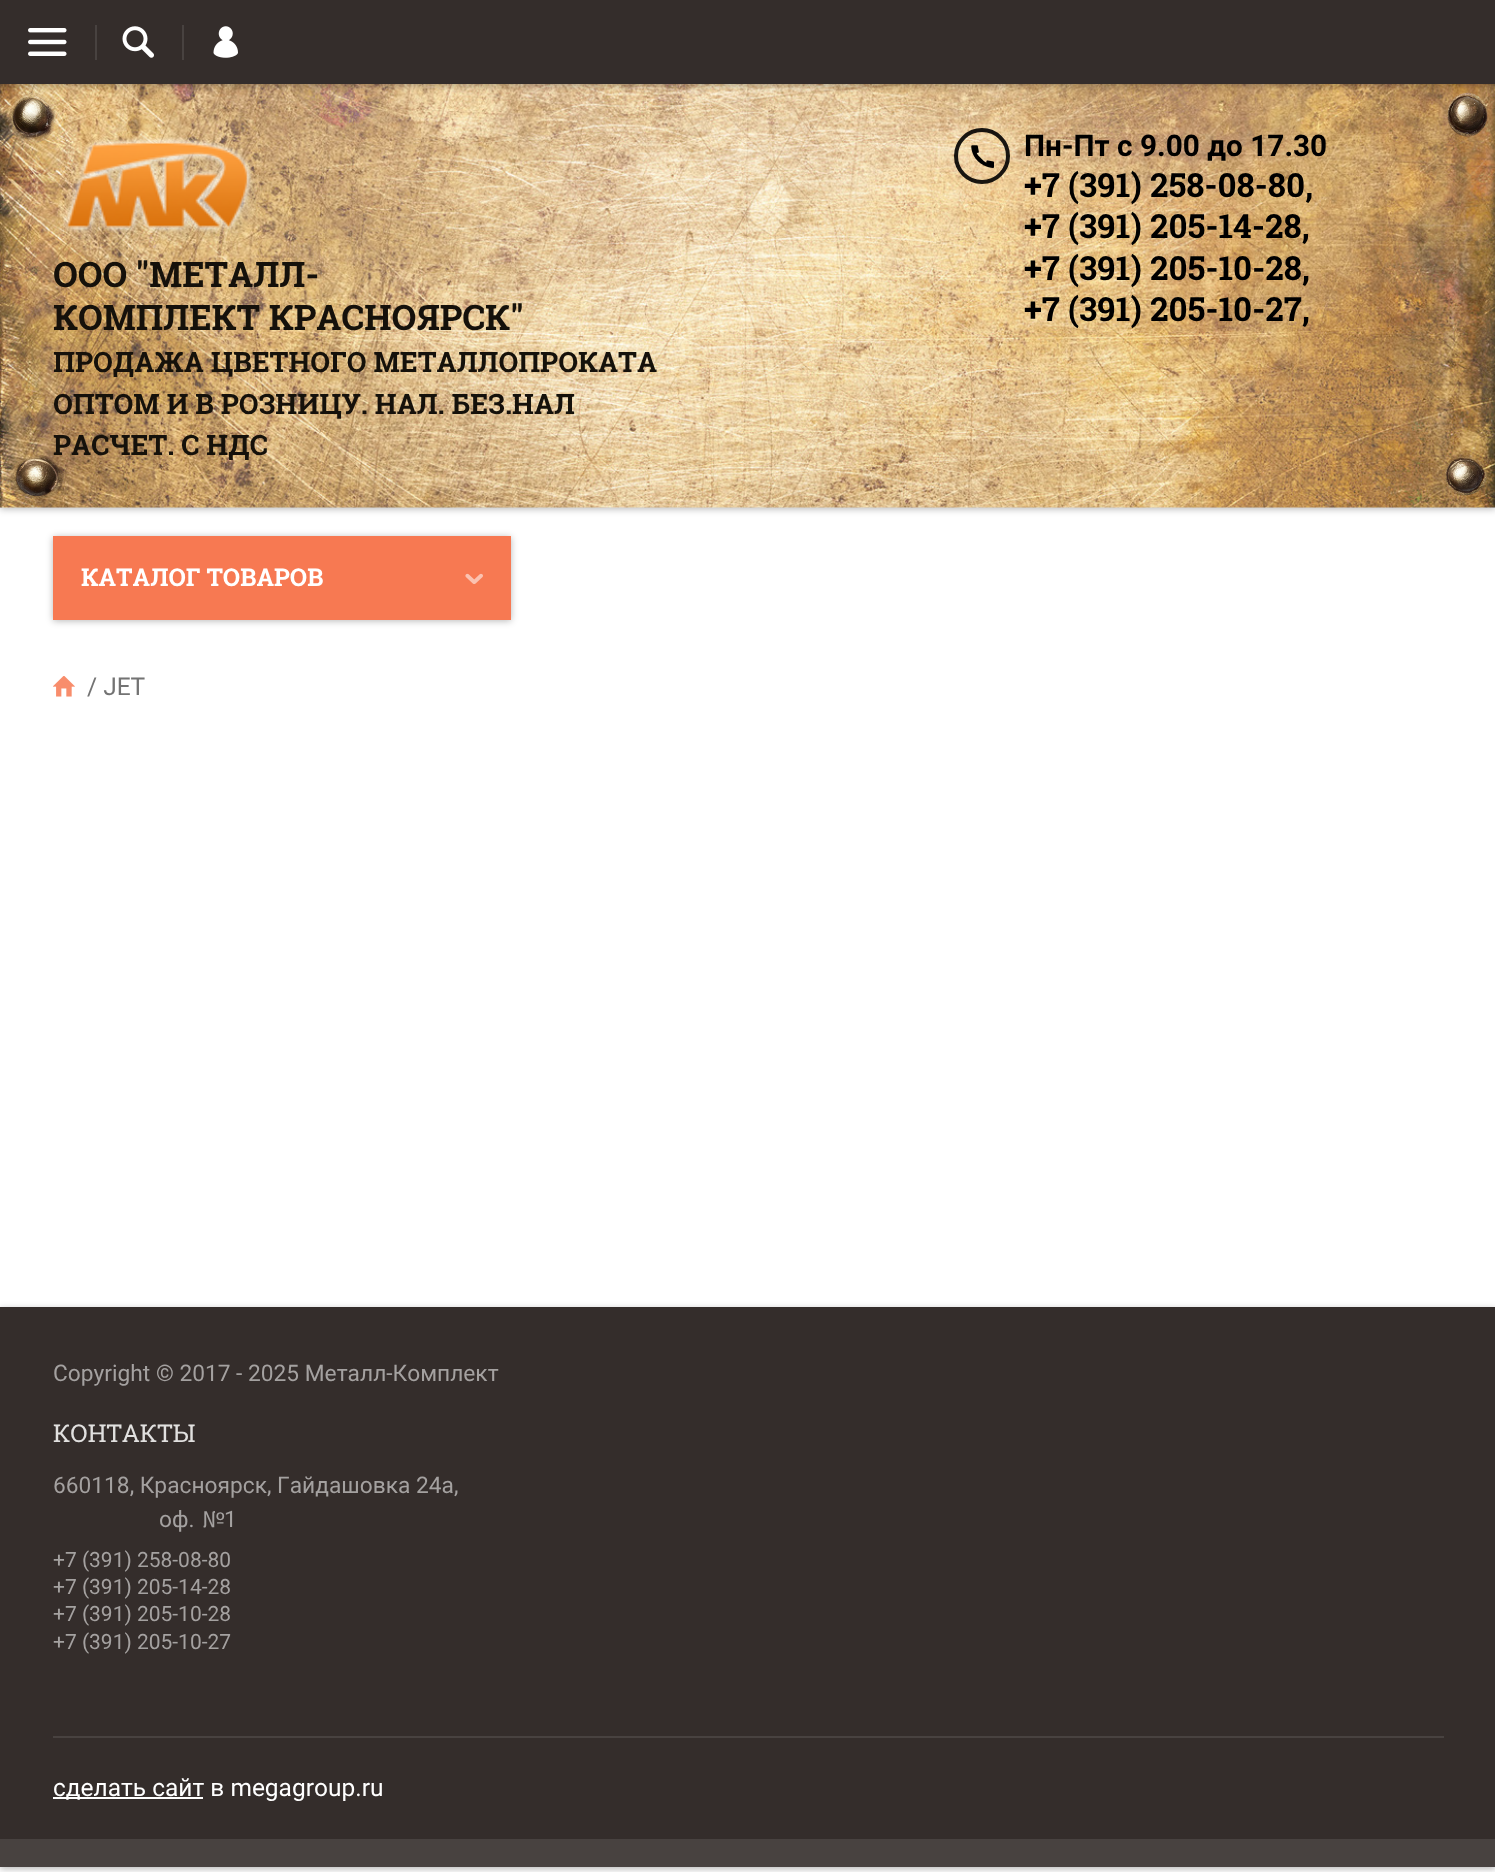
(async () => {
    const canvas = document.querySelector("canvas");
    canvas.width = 1495;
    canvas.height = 1872;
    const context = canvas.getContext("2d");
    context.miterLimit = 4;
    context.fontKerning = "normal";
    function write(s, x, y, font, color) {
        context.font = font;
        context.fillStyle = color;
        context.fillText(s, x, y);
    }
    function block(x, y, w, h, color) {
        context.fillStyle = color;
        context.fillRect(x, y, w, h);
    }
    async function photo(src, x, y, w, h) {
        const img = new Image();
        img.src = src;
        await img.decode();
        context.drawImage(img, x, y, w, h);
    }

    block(0, 0, 1495, 1872, "rgb(255, 255, 255)");
    context.fillStyle = "rgba(0, 0, 0, 0.28)";
    context.filter = "blur(3.5px)";
    context.beginPath();
    context.rect(0, 86, 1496, 423);
    context.fill();
    context.filter = "none";
    await photo("media/4.png", 0, 84, 1495, 424);
    await photo("media/5.png", 9, 92, 47, 52);
    await photo("media/6.png", 1447, 92, 41, 45);
    context.filter = "blur(3.5px)";
    context.beginPath();
    context.rect(0, 2, 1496, 84);
    context.fill();
    context.filter = "none";
    block(0, 0, 1495, 84, "rgb(52, 45, 43)");
    await photo("media/1.png", 28, 28, 39, 28);
    block(95, 25, 2, 35, "rgb(72, 66, 64)");
    await photo("media/2.png", 122, 26, 32, 32);
    block(182, 25, 2, 35, "rgb(72, 66, 64)");
    await photo("media/3.png", 213, 26, 25, 32);
    context.beginPath();
    context.arc(982, 156, 26, 0, Math.PI * 2);
    context.strokeStyle = "rgba(0, 0, 0, 0.9)";
    context.lineWidth = 4;
    context.stroke();
    await photo("media/7.png", 971, 145, 23, 23);
    write("Пн-Пт c 9.00 до 17.30", 1024, 156, "bold 29.75px Roboto", "rgb(0, 0, 0)");
    write("+7 (391) 258-08-80,", 1024, 197, "bold 33.25px Roboto Slab", "rgb(0, 0, 0)");
    write("+7 (391) 205-14-28,", 1024, 238, "bold 33.25px Roboto Slab", "rgb(0, 0, 0)");
    write("+7 (391) 205-10-28,", 1024, 280, "bold 33.25px Roboto Slab", "rgb(0, 0, 0)");
    write("+7 (391) 205-10-27,", 1024, 321, "bold 33.25px Roboto Slab", "rgb(0, 0, 0)");
    await photo("media/8.png", 63, 137, 193, 104);
    write("ООО \"МЕТАЛЛ-", 53, 287, "bold 35px Roboto Slab", "rgb(21, 17, 11)");
    write("КОМПЛЕКТ КРАСНОЯРСК\"", 53, 330, "bold 35px Roboto Slab", "rgb(21, 17, 11)");
    write("ПРОДАЖА ЦВЕТНОГО МЕТАЛЛОПРОКАТА", 53, 372, "bold 28px Roboto Slab", "rgb(21, 17, 11)");
    write("ОПТОМ И В РОЗНИЦУ. НАЛ. БЕЗ.НАЛ", 53, 414, "bold 28px Roboto Slab", "rgb(21, 17, 11)");
    await photo("media/9.png", 9, 455, 57, 44);
    write("РАСЧЕТ. С НДС", 53, 455, "bold 28px Roboto Slab", "rgb(21, 17, 11)");
    await photo("media/10.png", 1442, 455, 46, 41);
    context.fillStyle = "rgba(0, 0, 0, 0.28)";
    context.filter = "blur(3.5px)";
    context.beginPath();
    context.rect(53, 537, 458, 84);
    context.fill();
    context.filter = "none";
    block(53, 536, 458, 84, "rgb(247, 121, 82)");
    write("КАТАЛОГ ТОВАРОВ", 81, 586, "bold 24.5px Roboto Slab", "rgb(255, 255, 255)");
    await photo("media/11.png", 465, 573, 18, 11);
    await photo("media/12.png", 53, 676, 22, 21);
    write("/ JET", 87, 695, "24.5px Roboto", "rgb(115, 115, 115)");
    context.fillStyle = "rgba(0, 0, 0, 0.28)";
    context.filter = "blur(3.5px)";
    context.beginPath();
    context.rect(0, 1309, 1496, 560);
    context.fill();
    context.filter = "none";
    block(0, 1307, 1495, 532, "rgb(52, 45, 43)");
    block(0, 1839, 1495, 28, "rgb(72, 66, 64)");
    write("Copyright © 2017 - 2025 Металл-Комплект", 53, 1381, "22.75px Roboto", "rgb(164, 161, 160)");
    write("КОНТАКТЫ", 53, 1442, "24.5px Roboto Slab", "rgb(225, 224, 223)");
    write("660118, Красноярск, Гайдашовка 24а,", 53, 1493, "22.75px Roboto", "rgb(164, 161, 160)");
    write("оф.", 159, 1527, "22.75px Roboto", "rgb(164, 161, 160)");
    write("№", 202, 1527, "22.75px Chiron Hei HK", "rgb(164, 161, 160)");
    write("1", 224, 1527, "22.75px Roboto", "rgb(164, 161, 160)");
    write("+7 (391) 258-08-80", 53, 1567, "21px Roboto", "rgb(164, 161, 160)");
    write("+7 (391) 205-14-28", 53, 1594, "21px Roboto", "rgb(164, 161, 160)");
    write("+7 (391) 205-10-28", 53, 1621, "21px Roboto", "rgb(164, 161, 160)");
    write("+7 (391) 205-10-27", 53, 1649, "21px Roboto", "rgb(164, 161, 160)");
    block(53, 1736, 1391, 2, "rgb(72, 66, 64)");
    block(53, 1797, 150, 2, "rgb(255, 255, 255)");
    write("сделать сайт в megagroup.ru", 53, 1796, "24.5px Roboto", "rgb(255, 255, 255)");
})();
